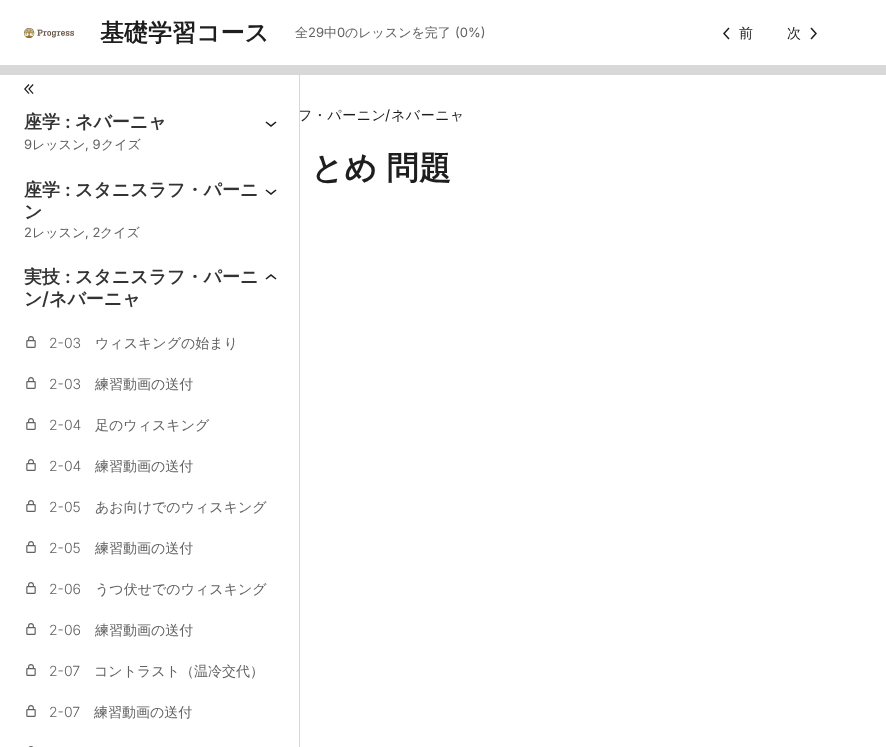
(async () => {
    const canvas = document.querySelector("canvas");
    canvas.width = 886;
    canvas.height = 747;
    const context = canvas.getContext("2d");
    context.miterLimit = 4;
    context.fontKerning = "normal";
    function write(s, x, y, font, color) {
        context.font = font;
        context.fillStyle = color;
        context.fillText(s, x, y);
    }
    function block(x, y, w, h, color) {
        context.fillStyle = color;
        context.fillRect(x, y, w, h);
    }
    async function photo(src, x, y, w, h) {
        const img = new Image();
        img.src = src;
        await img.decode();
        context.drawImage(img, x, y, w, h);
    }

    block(0, 0, 886, 747, "rgb(255, 255, 255)");
    await photo("media/1.png", 24, 28, 50, 10);
    write("基礎学習コース", 100, 41, "bold 24px WenQuanYi Zen Hei", "rgb(30, 30, 30)");
    write("全", 295, 37, "500 13px WenQuanYi Zen Hei", "rgb(98, 98, 98)");
    write("29", 308, 37, "13px Inter", "rgb(98, 98, 98)");
    write("中", 324, 37, "500 13px WenQuanYi Zen Hei", "rgb(98, 98, 98)");
    write("0", 337, 37, "13px Inter", "rgb(98, 98, 98)");
    write("のレッスンを完了", 345, 37, "500 13px WenQuanYi Zen Hei", "rgb(98, 98, 98)");
    write("(0%)", 455, 37, "13px Inter", "rgb(98, 98, 98)");
    await photo("media/2.png", 24, 84, 10, 10);
    await photo("media/3.png", 723, 27, 7, 13);
    write("前", 739, 38, "500 14px WenQuanYi Zen Hei", "rgb(30, 30, 30)");
    write("次", 787, 38, "500 14px WenQuanYi Zen Hei", "rgb(30, 30, 30)");
    await photo("media/4.png", 810, 27, 7, 13);
    block(0, 65, 886, 10, "rgb(216, 216, 216)");
    context.letterSpacing = "0.5px";
    write("フ・パーニン", 298, 120, "500 14px WenQuanYi Zen Hei", "rgb(30, 30, 30)");
    block(299, 75, 1, 672, "rgb(216, 216, 216)");
    context.letterSpacing = "0px";
    write("座学", 24, 128, "bold 18px WenQuanYi Zen Hei", "rgb(51, 51, 51)");
    write(":", 65, 128, "600 18px Inter", "rgb(51, 51, 51)");
    write("ネバーニャ", 75, 128, "bold 18px WenQuanYi Zen Hei", "rgb(51, 51, 51)");
    await photo("media/5.png", 265, 121, 12, 6);
    write("9", 24, 149, "13px Inter", "rgb(98, 98, 98)");
    write("レッスン", 32, 149, "500 13px WenQuanYi Zen Hei", "rgb(98, 98, 98)");
    write(", 9", 85, 149, "13px Inter", "rgb(98, 98, 98)");
    write("クイズ", 101, 149, "500 13px WenQuanYi Zen Hei", "rgb(98, 98, 98)");
    write("座学", 24, 196, "bold 18px WenQuanYi Zen Hei", "rgb(51, 51, 51)");
    write(":", 65, 196, "600 18px Inter", "rgb(51, 51, 51)");
    write("スタニスラフ・パーニ", 75, 196, "bold 18px WenQuanYi Zen Hei", "rgb(51, 51, 51)");
    write("ン", 24, 218, "bold 18px WenQuanYi Zen Hei", "rgb(51, 51, 51)");
    await photo("media/5.png", 265, 189, 12, 6);
    write("2", 24, 237, "13px Inter", "rgb(98, 98, 98)");
    write("レッスン", 32, 237, "500 13px WenQuanYi Zen Hei", "rgb(98, 98, 98)");
    write(", 2", 85, 237, "13px Inter", "rgb(98, 98, 98)");
    write("クイズ", 100, 237, "500 13px WenQuanYi Zen Hei", "rgb(98, 98, 98)");
    write("実技", 24, 283, "bold 18px WenQuanYi Zen Hei", "rgb(51, 51, 51)");
    write(":", 65, 283, "600 18px Inter", "rgb(51, 51, 51)");
    write("スタニスラフ・パーニ", 75, 283, "bold 18px WenQuanYi Zen Hei", "rgb(51, 51, 51)");
    write("ン", 24, 305, "bold 18px WenQuanYi Zen Hei", "rgb(51, 51, 51)");
    write("/", 42, 305, "600 18px Inter", "rgb(51, 51, 51)");
    write("ネバーニャ", 49, 305, "bold 18px WenQuanYi Zen Hei", "rgb(51, 51, 51)");
    await photo("media/6.png", 265, 274, 12, 6);
    await photo("media/7.png", 26, 336, 10, 12);
    write("2-03", 49, 348, "300 14px Inter", "rgb(98, 98, 98)");
    write("ウィスキングの始まり", 95, 348, "500 14px WenQuanYi Zen Hei", "rgb(98, 98, 98)");
    await photo("media/7.png", 26, 377, 10, 12);
    write("2-03", 49, 389, "300 14px Inter", "rgb(98, 98, 98)");
    write("練習動画の送付", 95, 389, "500 14px WenQuanYi Zen Hei", "rgb(98, 98, 98)");
    await photo("media/7.png", 26, 418, 10, 12);
    write("2-04", 49, 430, "300 14px Inter", "rgb(98, 98, 98)");
    write("足のウィスキング", 95, 430, "500 14px WenQuanYi Zen Hei", "rgb(98, 98, 98)");
    await photo("media/7.png", 26, 459, 10, 12);
    write("2-04", 49, 471, "300 14px Inter", "rgb(98, 98, 98)");
    write("練習動画の送付", 95, 471, "500 14px WenQuanYi Zen Hei", "rgb(98, 98, 98)");
    await photo("media/7.png", 26, 500, 10, 12);
    write("2-05", 49, 512, "300 14px Inter", "rgb(98, 98, 98)");
    write("あお向けでのウィスキング", 95, 512, "500 14px WenQuanYi Zen Hei", "rgb(98, 98, 98)");
    await photo("media/7.png", 26, 541, 10, 12);
    write("2-05", 49, 553, "300 14px Inter", "rgb(98, 98, 98)");
    write("練習動画の送付", 95, 553, "500 14px WenQuanYi Zen Hei", "rgb(98, 98, 98)");
    await photo("media/7.png", 26, 582, 10, 12);
    write("2-06", 49, 594, "300 14px Inter", "rgb(98, 98, 98)");
    write("うつ伏せでのウィスキング", 95, 594, "500 14px WenQuanYi Zen Hei", "rgb(98, 98, 98)");
    await photo("media/7.png", 26, 623, 10, 12);
    write("2-06", 49, 635, "300 14px Inter", "rgb(98, 98, 98)");
    write("練習動画の送付", 95, 635, "500 14px WenQuanYi Zen Hei", "rgb(98, 98, 98)");
    await photo("media/7.png", 26, 664, 10, 12);
    write("2-07", 49, 676, "300 14px Inter", "rgb(98, 98, 98)");
    write("コントラスト（温冷交代）", 94, 676, "500 14px WenQuanYi Zen Hei", "rgb(98, 98, 98)");
    await photo("media/7.png", 26, 705, 10, 12);
    write("2-07", 49, 717, "300 14px Inter", "rgb(98, 98, 98)");
    write("練習動画の送付", 94, 717, "500 14px WenQuanYi Zen Hei", "rgb(98, 98, 98)");
    await photo("media/8.png", 28, 746, 6, 1);
    context.letterSpacing = "0.5px";
    write("/", 385, 120, "14px Inter", "rgb(30, 30, 30)");
    write("ネバーニャ", 391, 120, "500 14px WenQuanYi Zen Hei", "rgb(30, 30, 30)");
    context.wordSpacing = "-1px";
    write("とめ 問題", 311, 179, "bold 32px WenQuanYi Zen Hei", "rgb(30, 30, 30)");
})();
